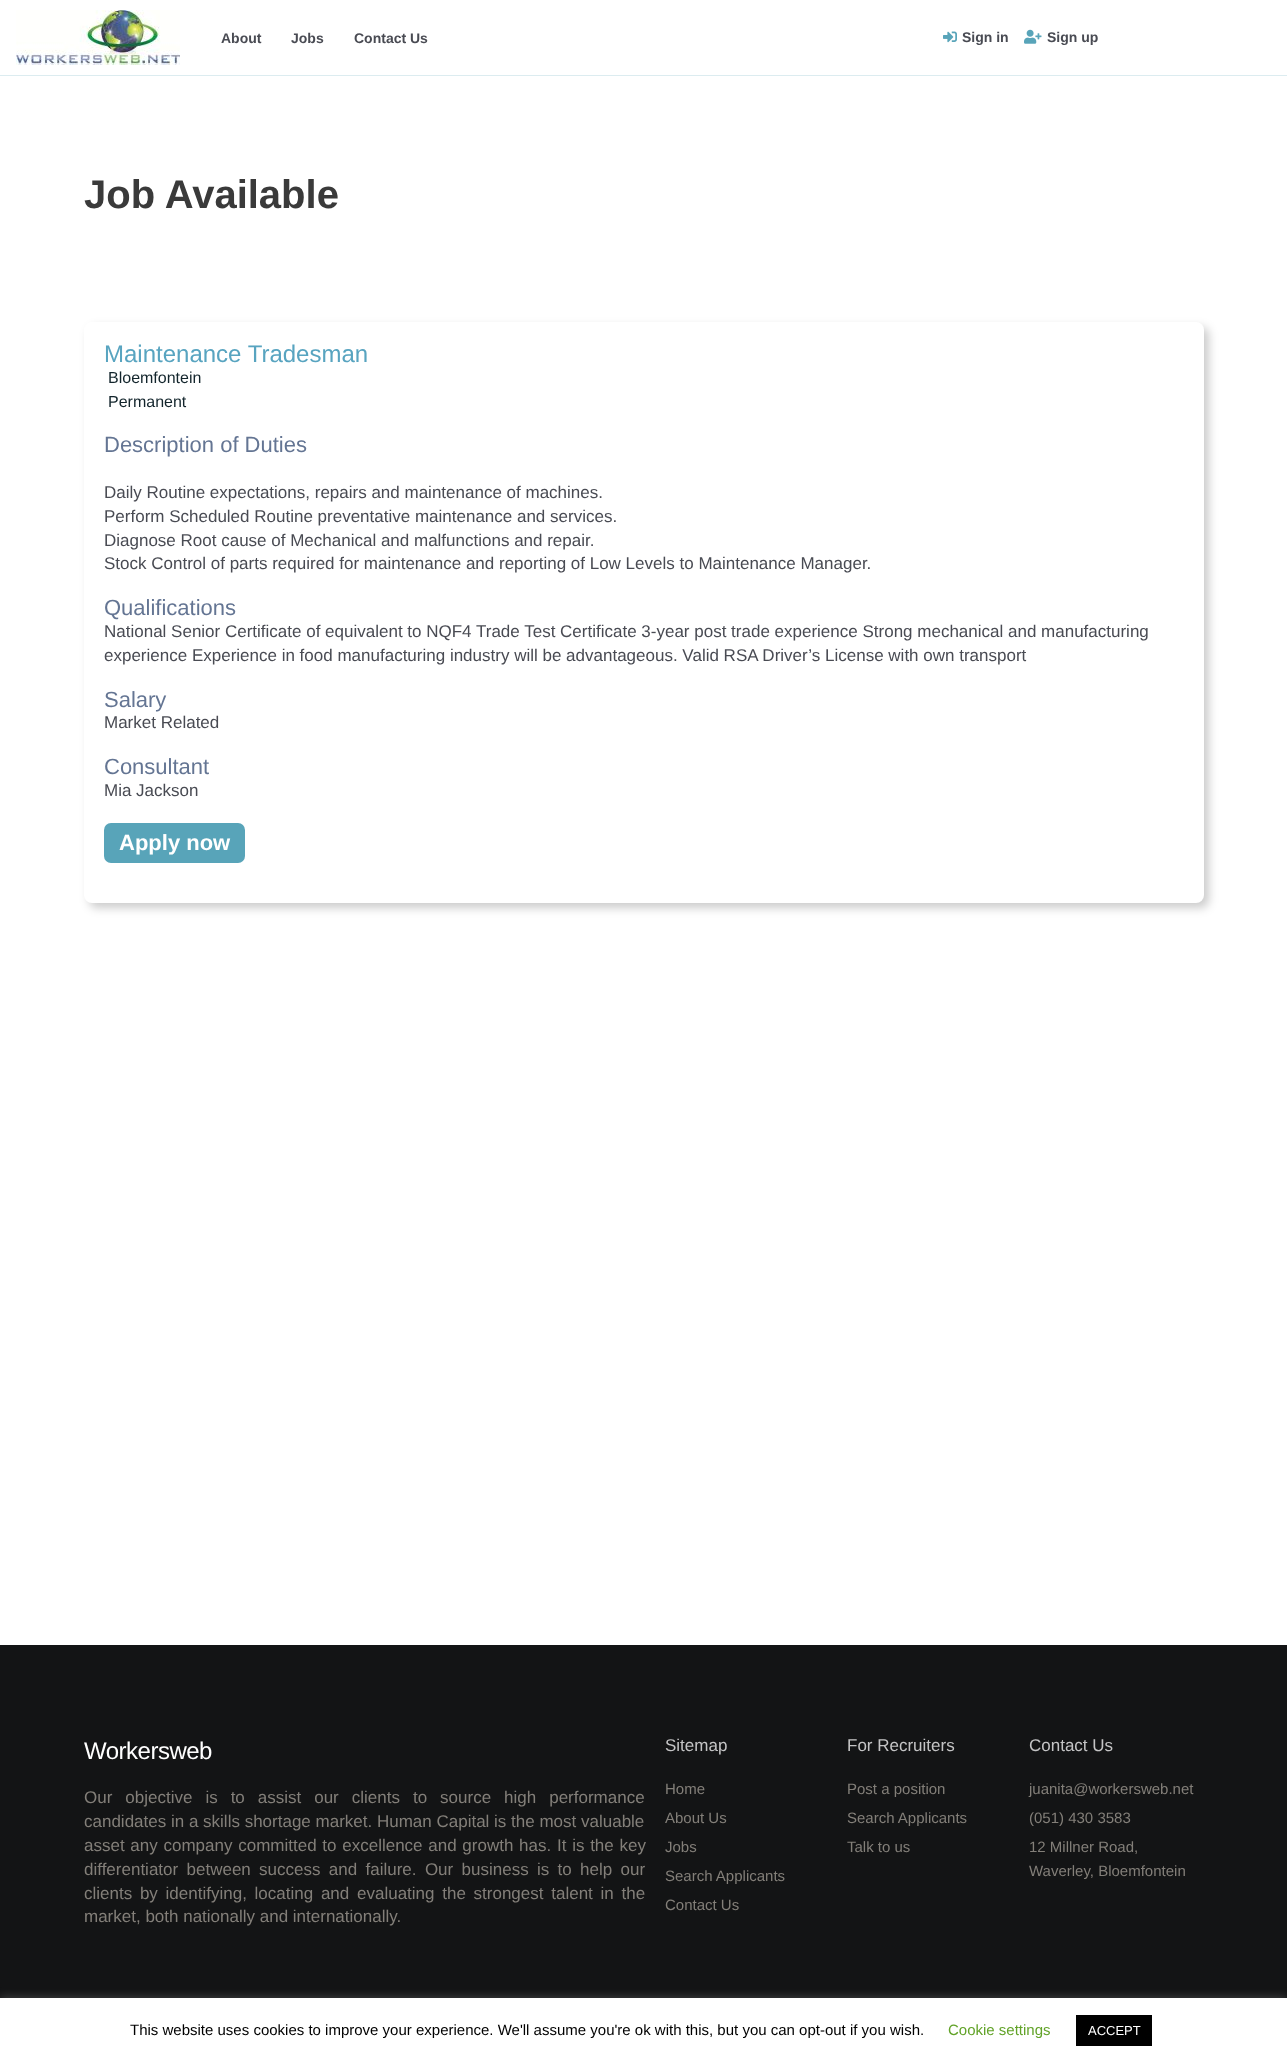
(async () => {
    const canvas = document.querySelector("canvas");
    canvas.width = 1287;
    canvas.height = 2063;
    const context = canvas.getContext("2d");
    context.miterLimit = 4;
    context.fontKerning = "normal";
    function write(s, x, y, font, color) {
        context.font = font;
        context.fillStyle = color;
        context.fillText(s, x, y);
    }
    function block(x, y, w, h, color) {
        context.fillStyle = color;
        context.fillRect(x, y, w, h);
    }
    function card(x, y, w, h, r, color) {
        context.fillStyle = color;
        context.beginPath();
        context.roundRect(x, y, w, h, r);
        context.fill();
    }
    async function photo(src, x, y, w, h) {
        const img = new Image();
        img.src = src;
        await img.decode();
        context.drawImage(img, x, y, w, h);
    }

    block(0, 0, 1287, 2063, "rgb(255, 255, 255)");
    block(0, 75, 1287, 1, "rgb(220, 236, 240)");
    await photo("media/1.png", 16, 10, 164, 55);
    write("About", 221, 43, "bold 14px Liberation Sans", "rgb(73, 75, 83)");
    write("Jobs", 291, 43, "bold 14px Liberation Sans", "rgb(73, 75, 83)");
    write("Contact Us", 354, 43, "bold 14px Liberation Sans", "rgb(73, 75, 83)");
    await photo("media/2.png", 943, 31, 14, 12);
    write("Sign in", 962, 42, "bold 14px Liberation Sans", "rgb(73, 75, 83)");
    await photo("media/3.png", 1024, 29, 18, 15);
    write("Sign up", 1047, 42, "bold 14px Liberation Sans", "rgb(73, 75, 83)");
    write("Job Available", 84, 208, "bold 40px Liberation Sans", "rgb(58, 58, 58)");
    context.fillStyle = "rgba(0, 0, 0, 0.2)";
    context.filter = "blur(5px)";
    context.beginPath();
    context.roundRect(89, 327, 1120, 581, 8);
    context.fill();
    context.filter = "none";
    card(84, 322, 1120, 581, 8, "rgb(255, 255, 255)");
    write("Maintenance Tradesman", 104, 362, "24px Liberation Sans", "rgb(88, 164, 192)");
    write("Bloemfontein", 108, 383, "16px Liberation Sans", "rgb(19, 37, 44)");
    write("Permanent", 108, 407, "16px Liberation Sans", "rgb(19, 37, 44)");
    write("Description of Duties", 104, 452, "22px Liberation Sans", "rgb(100, 117, 147)");
    write("Daily Routine expectations, repairs and maintenance of machines.", 104, 498, "17px Liberation Sans", "rgb(73, 75, 83)");
    write("Perform Scheduled Routine preventative maintenance and services.", 104, 522, "17px Liberation Sans", "rgb(73, 75, 83)");
    write("Diagnose Root cause of Mechanical and malfunctions and repair.", 104, 546, "17px Liberation Sans", "rgb(73, 75, 83)");
    write("Stock Control of parts required for maintenance and reporting of Low Levels to Maintenance Manager.", 104, 569, "17px Liberation Sans", "rgb(73, 75, 83)");
    write("Qualifications", 104, 615, "22px Liberation Sans", "rgb(100, 117, 147)");
    write("National Senior Certificate of equivalent to NQF4 Trade Test Certificate 3-year post trade experience Strong mechanical and manufacturing", 104, 637, "17px Liberation Sans", "rgb(73, 75, 83)");
    write("experience Experience in food manufacturing industry will be advantageous. Valid RSA Driver’s License with own transport", 104, 661, "17px Liberation Sans", "rgb(73, 75, 83)");
    write("Salary", 104, 707, "22px Liberation Sans", "rgb(100, 117, 147)");
    write("Market Related", 104, 728, "17px Liberation Sans", "rgb(73, 75, 83)");
    write("Consultant", 104, 774, "22px Liberation Sans", "rgb(100, 117, 147)");
    write("Mia Jackson", 104, 796, "17px Liberation Sans", "rgb(73, 75, 83)");
    card(104, 823, 141, 40, 7, "rgb(88, 164, 185)");
    write("Apply now", 119, 850, "bold 22px Liberation Sans", "rgb(255, 255, 255)");
    block(0, 1645, 1287, 353, "rgb(19, 20, 21)");
    context.letterSpacing = "-0.5px";
    write("Workersweb", 84, 1759, "24px Liberation Sans", "rgb(255, 255, 255)");
    context.letterSpacing = "0px";
    context.wordSpacing = "8.25px";
    write("Our objective is to assist our clients to source high performance", 84, 1803, "17px Liberation Sans", "rgb(131, 127, 121)");
    context.wordSpacing = "0px";
    write("candidates in a skills shortage market. Human Capital is the most valuable", 84, 1827, "17px Liberation Sans", "rgb(131, 127, 121)");
    context.wordSpacing = "1px";
    write("asset any company committed to excellence and growth has. It is the key", 84, 1851, "17px Liberation Sans", "rgb(131, 127, 121)");
    context.wordSpacing = "3.6px";
    write("differentiator between success and failure. Our business is to help our", 84, 1875, "17px Liberation Sans", "rgb(131, 127, 121)");
    context.wordSpacing = "3px";
    write("clients by identifying, locating and evaluating the strongest talent in the", 84, 1899, "17px Liberation Sans", "rgb(131, 127, 121)");
    context.wordSpacing = "0px";
    write("market, both nationally and internationally.", 84, 1922, "17px Liberation Sans", "rgb(131, 127, 121)");
    write("Sitemap", 665, 1751, "17px Liberation Sans", "rgb(196, 196, 197)");
    write("Home", 665, 1794, "15px Liberation Sans", "rgb(131, 127, 121)");
    write("About Us", 665, 1823, "15px Liberation Sans", "rgb(131, 127, 121)");
    write("Jobs", 665, 1852, "15px Liberation Sans", "rgb(131, 127, 121)");
    write("Search Applicants", 665, 1881, "15px Liberation Sans", "rgb(131, 127, 121)");
    write("Contact Us", 665, 1910, "15px Liberation Sans", "rgb(131, 127, 121)");
    write("For Recruiters", 847, 1751, "17px Liberation Sans", "rgb(196, 196, 197)");
    write("Post a position", 847, 1794, "15px Liberation Sans", "rgb(131, 127, 121)");
    write("Search Applicants", 847, 1823, "15px Liberation Sans", "rgb(131, 127, 121)");
    write("Talk to us", 847, 1852, "15px Liberation Sans", "rgb(131, 127, 121)");
    write("Contact Us", 1029, 1751, "17px Liberation Sans", "rgb(196, 196, 197)");
    write("juanita@workersweb.net", 1029, 1794, "15px Liberation Sans", "rgb(131, 127, 121)");
    write("(051) 430 3583", 1029, 1823, "15px Liberation Sans", "rgb(131, 127, 121)");
    write("12 Millner Road,", 1029, 1852, "15px Liberation Sans", "rgb(131, 127, 121)");
    write("Waverley, Bloemfontein", 1029, 1876, "15px Liberation Sans", "rgb(131, 127, 121)");
    context.fillStyle = "rgba(172, 171, 171, 0.3)";
    context.filter = "blur(5px)";
    context.beginPath();
    context.rect(0, 1997, 1287, 65);
    context.fill();
    context.filter = "none";
    block(0, 1998, 1287, 65, "rgb(255, 255, 255)");
    write("This website uses cookies to improve your experience. We'll assume you're ok with this, but you can opt-out if you wish.", 130, 2035, "15px Liberation Sans", "rgb(0, 0, 0)");
    write("Cookie settings", 948, 2035, "15px Liberation Sans", "rgb(98, 163, 41)");
    block(1076, 2015, 76, 31, "rgb(0, 0, 0)");
    write("ACCEPT", 1088, 2035, "13px Liberation Sans", "rgb(255, 255, 255)");
})();
